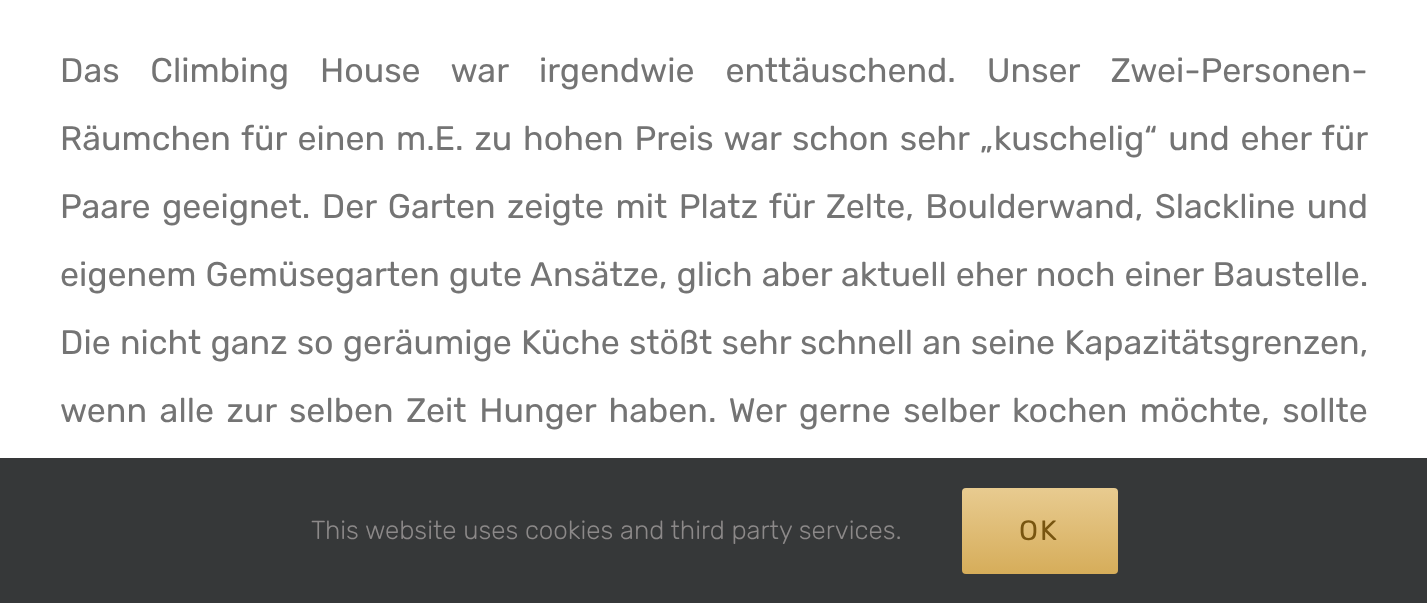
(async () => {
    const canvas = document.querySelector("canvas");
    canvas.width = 1427;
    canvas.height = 603;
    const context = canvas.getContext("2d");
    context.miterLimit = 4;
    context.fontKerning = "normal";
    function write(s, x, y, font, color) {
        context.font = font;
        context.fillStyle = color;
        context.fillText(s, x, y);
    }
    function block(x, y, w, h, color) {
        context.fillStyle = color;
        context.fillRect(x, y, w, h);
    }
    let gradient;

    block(0, 0, 1427, 603, "rgb(255, 255, 255)");
    context.wordSpacing = "22.5px";
    write("Das Climbing House war irgendwie enttäuschend. Unser Zwei-Personen-", 60, 82, "34px Rubik", "rgb(116, 116, 116)");
    context.wordSpacing = "2.5px";
    write("Räumchen für einen m.E. zu hohen Preis war schon sehr „kuschelig“ und eher für", 60, 150, "34px Rubik", "rgb(116, 116, 116)");
    context.wordSpacing = "3.1px";
    write("Paare geeignet. Der Garten zeigte mit Platz für Zelte, Boulderwand, Slackline und", 60, 218, "34px Rubik", "rgb(116, 116, 116)");
    context.wordSpacing = "0.75px";
    write("eigenem Gemüsegarten gute Ansätze, glich aber aktuell eher noch einer Baustelle.", 60, 286, "34px Rubik", "rgb(116, 116, 116)");
    context.wordSpacing = "0.9px";
    write("Die nicht ganz so geräumige Küche stößt sehr schnell an seine Kapazitätsgrenzen,", 60, 354, "34px Rubik", "rgb(116, 116, 116)");
    context.wordSpacing = "4.25px";
    write("wenn alle zur selben Zeit Hunger haben. Wer gerne selber kochen möchte, sollte", 60, 422, "34px Rubik", "rgb(116, 116, 116)");
    block(0, 458, 1427, 145, "rgb(54, 56, 57)");
    context.wordSpacing = "0px";
    write("This website uses cookies and third party services.", 311, 539, "300 26px Rubik", "rgb(140, 137, 137)");
    gradient = context.createLinearGradient(1040, 488, 1040, 574);
    gradient.addColorStop(0, "rgb(232, 203, 144)");
    gradient.addColorStop(1, "rgb(214, 173, 90)");
    context.fillStyle = gradient;
    context.beginPath();
    context.roundRect(962, 488, 156, 86, 4);
    context.fill();
    context.letterSpacing = "2px";
    write("OK", 1019, 540, "28px Rubik", "rgb(120, 85, 16)");
})();
